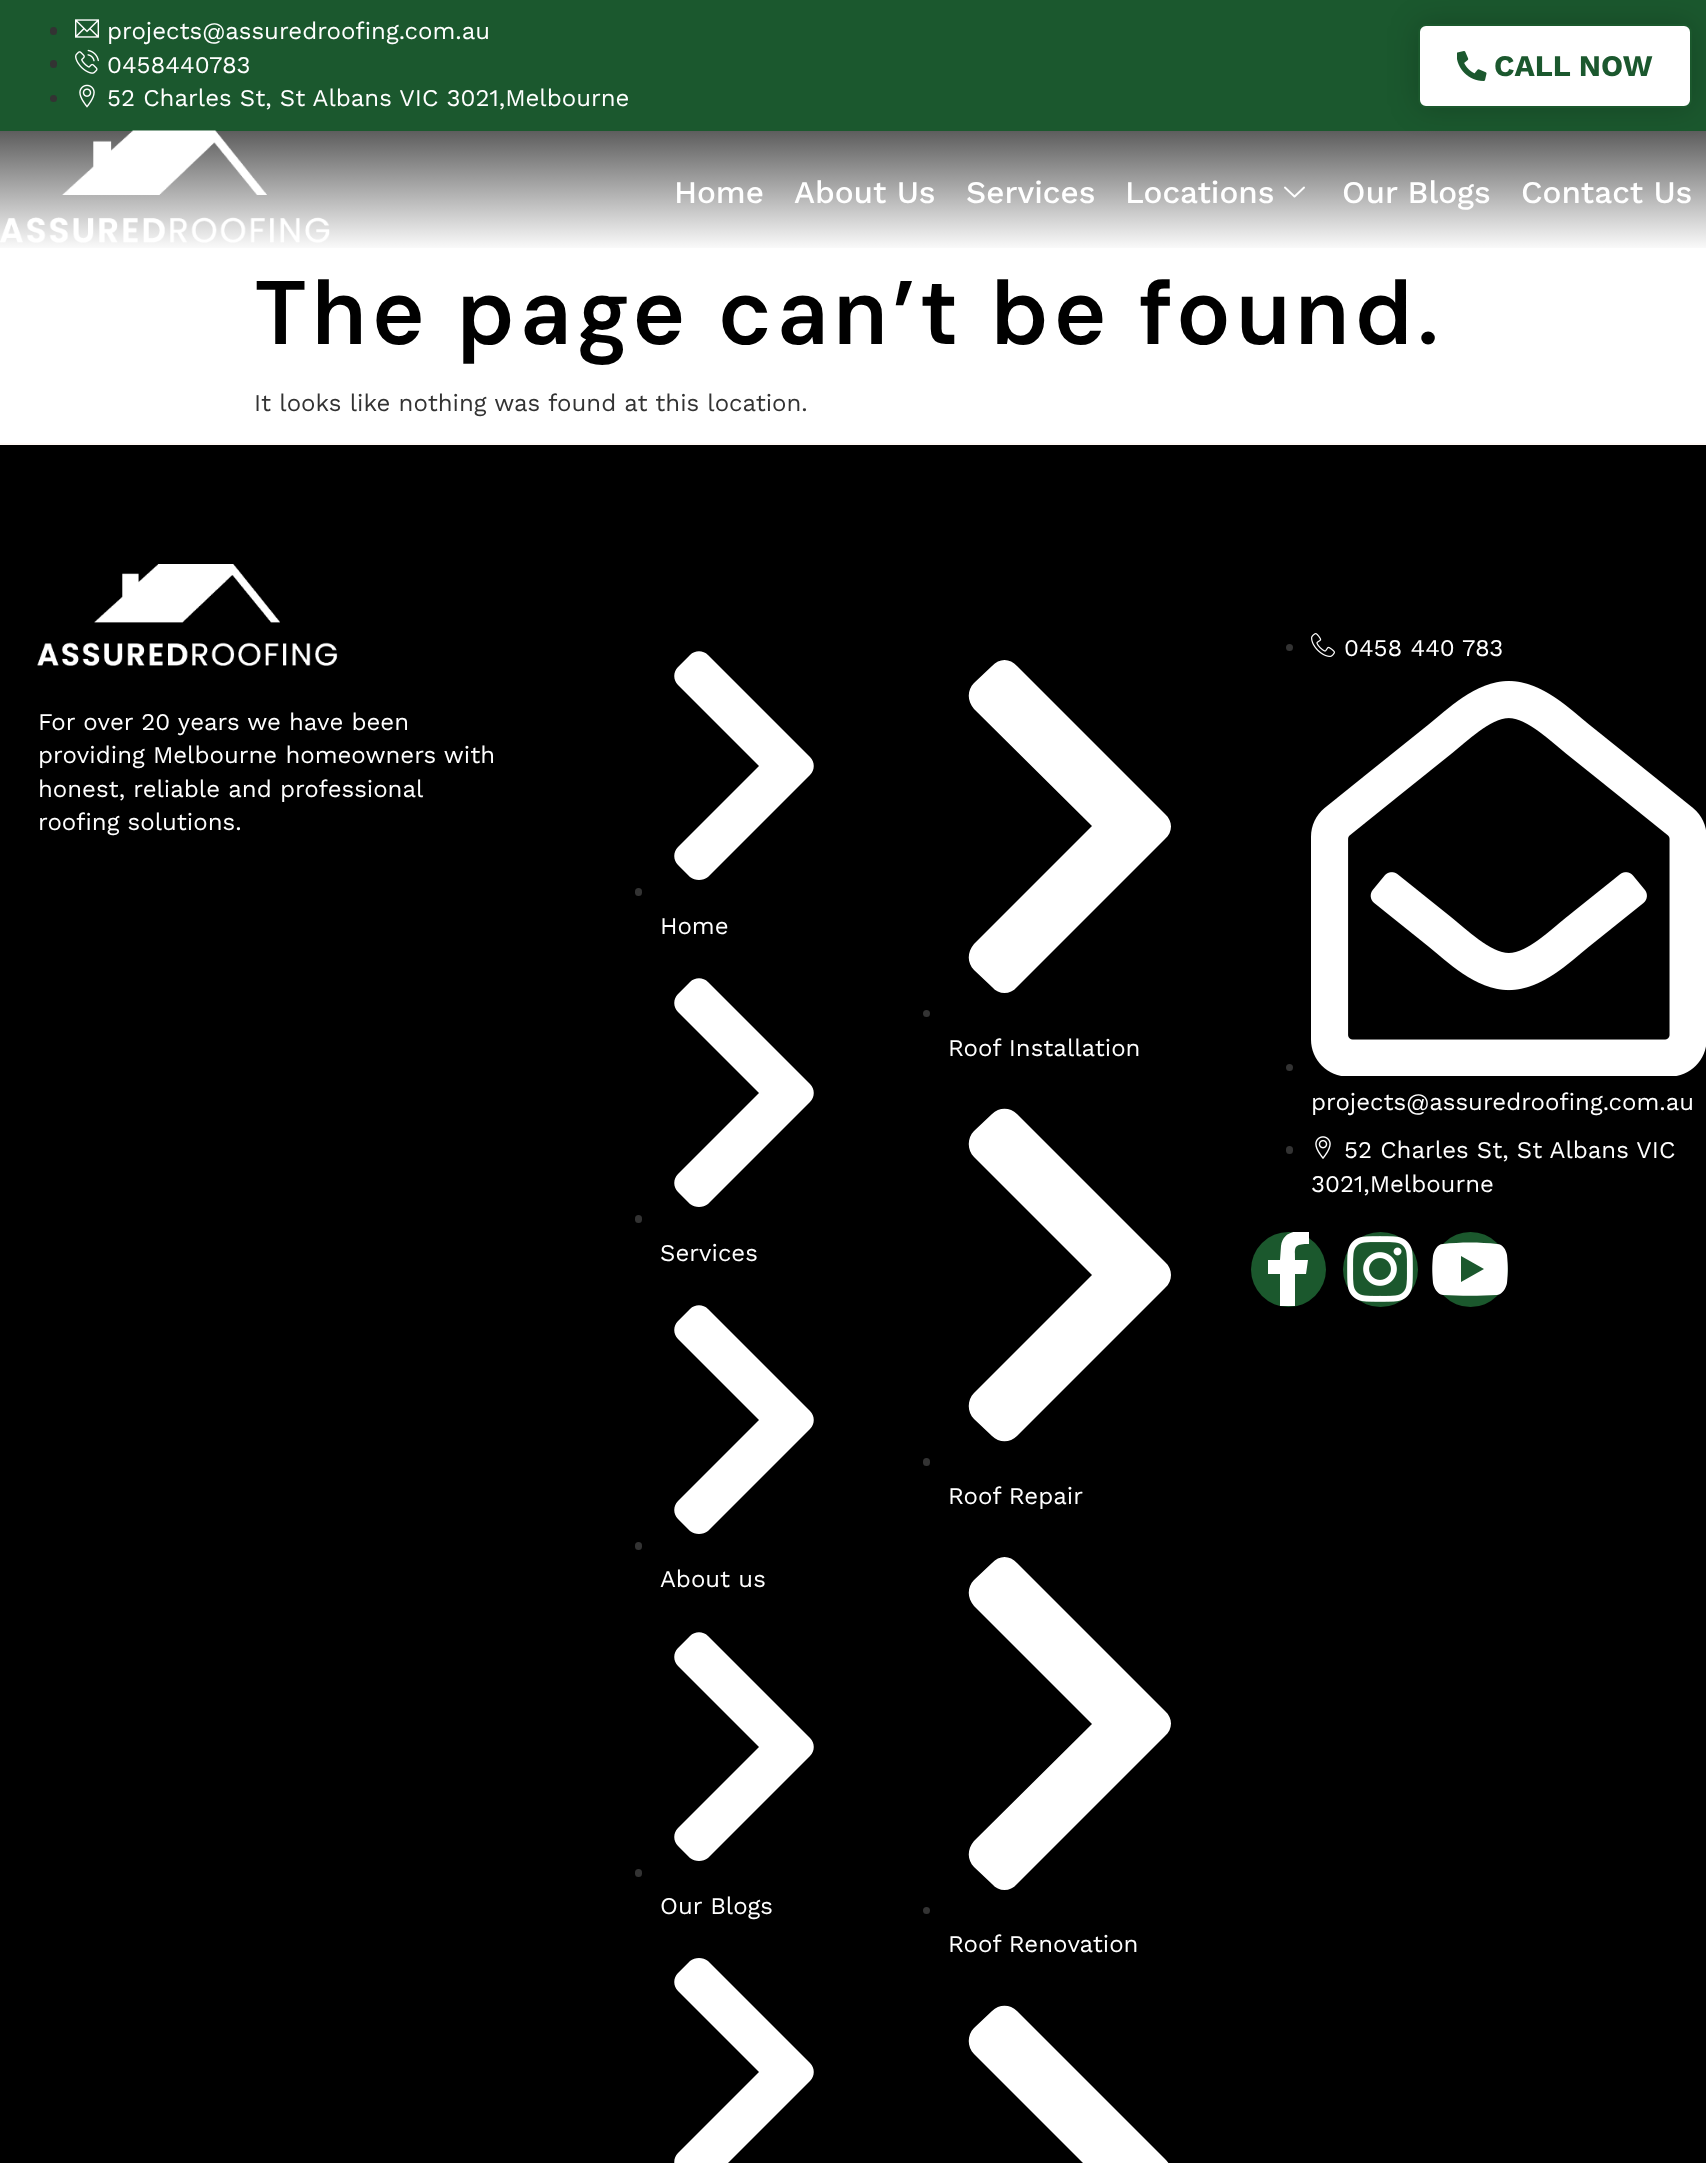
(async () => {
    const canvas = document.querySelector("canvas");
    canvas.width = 1706;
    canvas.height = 2163;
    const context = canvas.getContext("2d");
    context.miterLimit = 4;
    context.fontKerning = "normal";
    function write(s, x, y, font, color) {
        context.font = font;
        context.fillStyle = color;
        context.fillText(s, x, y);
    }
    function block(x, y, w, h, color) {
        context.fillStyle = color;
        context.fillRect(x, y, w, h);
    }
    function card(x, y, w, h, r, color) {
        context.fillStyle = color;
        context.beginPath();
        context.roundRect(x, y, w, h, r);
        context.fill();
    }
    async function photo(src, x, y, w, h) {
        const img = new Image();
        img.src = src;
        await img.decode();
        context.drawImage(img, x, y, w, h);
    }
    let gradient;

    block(0, 0, 1706, 2163, "rgb(255, 255, 255)");
    block(0, 0, 1706, 131, "rgb(27, 88, 46)");
    card(50, 27, 7, 8, 3.5, "rgb(51, 51, 51)");
    await photo("media/1.png", 75, 19, 24, 19);
    write("projects@assuredroofing.com.au", 107, 39, "24px Work Sans", "rgb(255, 255, 255)");
    card(50, 60, 7, 8, 3.5, "rgb(51, 51, 51)");
    await photo("media/2.png", 75, 49, 24, 25);
    write("0458440783", 107, 73, "24px Work Sans", "rgb(255, 255, 255)");
    context.fillStyle = "rgb(51, 51, 51)";
    context.beginPath();
    context.arc(53.5, 98.5, 3.5, 0, Math.PI * 2);
    context.fill();
    await photo("media/3.png", 79, 84, 16, 24);
    write("52 Charles St, St Albans VIC 3021,Melbourne", 107, 106, "24px Work Sans", "rgb(255, 255, 255)");
    context.fillStyle = "rgba(0, 0, 0, 0.2)";
    context.filter = "blur(15px)";
    context.beginPath();
    context.roundRect(1418, 24, 274, 84, 8);
    context.fill();
    context.filter = "none";
    context.fillStyle = "rgb(255, 255, 255)";
    context.beginPath();
    context.roundRect(1419, 25, 272, 82, 7);
    context.fill();
    context.strokeStyle = "rgb(27, 88, 45)";
    context.lineWidth = 2;
    context.stroke();
    await photo("media/4.png", 1457, 51, 30, 30);
    write("CALL NOW", 1494, 76, "bold 30px Work Sans", "rgb(27, 88, 46)");
    gradient = context.createLinearGradient(854, 130, 854, 252);
    gradient.addColorStop(0, "rgba(23, 23, 23, 0.7)");
    gradient.addColorStop(1, "rgba(23, 23, 23, 0)");
    context.fillStyle = gradient;
    context.fillRect(0, 131, 1706, 117);
    await photo("media/5.png", 0, 130, 330, 113);
    write("Home", 674, 203, "500 31.5px Work Sans", "rgb(255, 255, 255)");
    write("About Us", 794, 203, "500 31.5px Work Sans", "rgb(255, 255, 255)");
    write("Services", 966, 203, "500 31.5px Work Sans", "rgb(255, 255, 255)");
    write("Locations", 1125, 203, "500 31.5px Work Sans", "rgb(255, 255, 255)");
    await photo("media/6.png", 1284, 186, 21, 12);
    write("Our Blogs", 1342, 203, "500 31.5px Work Sans", "rgb(255, 255, 255)");
    write("Contact Us", 1521, 203, "500 31.5px Work Sans", "rgb(255, 255, 255)");
    context.letterSpacing = "4.5px";
    context.wordSpacing = "1px";
    write("The page can’t be found.", 254, 344, "600 90px DM Sans", "rgb(0, 0, 0)");
    context.letterSpacing = "0px";
    context.wordSpacing = "0px";
    write("It looks like nothing was found at this location.", 254, 411, "24px Work Sans", "rgb(51, 51, 51)");
    block(0, 445, 1706, 1718, "rgb(0, 0, 0)");
    block(0, 443, 1706, 2, "rgb(255, 249, 246)");
    await photo("media/7.png", 37, 564, 301, 102);
    write("For over 20 years we have been", 38, 730, "24px Work Sans", "rgb(255, 255, 255)");
    write("providing Melbourne homeowners with", 38, 763, "24px Work Sans", "rgb(255, 255, 255)");
    write("honest, reliable and professional", 38, 797, "24px Work Sans", "rgb(255, 255, 255)");
    write("roofing solutions.", 38, 830, "24px Work Sans", "rgb(255, 255, 255)");
    context.fillStyle = "rgb(51, 51, 51)";
    context.beginPath();
    context.arc(1289.5, 647.5, 3.5, 0, Math.PI * 2);
    context.fill();
    await photo("media/8.png", 1311, 633, 24, 24);
    write("0458 440 783", 1344, 656, "24px Work Sans", "rgb(255, 255, 255)");
    context.fillStyle = "rgb(51, 51, 51)";
    context.beginPath();
    context.arc(1289.5, 1067.5, 3.5, 0, Math.PI * 2);
    context.fill();
    await photo("media/9.png", 1311, 681, 395, 395);
    write("projects@assuredroofing.com.au", 1311, 1110, "24px Work Sans", "rgb(255, 255, 255)");
    card(1286, 1146, 7, 8, 3.5, "rgb(51, 51, 51)");
    await photo("media/10.png", 1315, 1136, 16, 23);
    write("52 Charles St, St Albans VIC", 1344, 1158, "24px Work Sans", "rgb(255, 255, 255)");
    write("3021,Melbourne", 1311, 1192, "24px Work Sans", "rgb(255, 255, 255)");
    context.fillStyle = "rgb(27, 88, 45)";
    context.beginPath();
    context.arc(1288.5, 1269.5, 37.5, 0, Math.PI * 2);
    context.fill();
    context.save();
    context.beginPath();
    context.rect(1251, 1232, 75, 75);
    context.clip();
    context.fillStyle = "rgb(255, 255, 255)";
    context.beginPath();
    context.moveTo(1306, 1274);
    context.lineTo(1308, 1260);
    context.lineTo(1295, 1260);
    context.bezierCurveTo(1295, 1247, 1293, 1244, 1309, 1244);
    context.lineTo(1309, 1232);
    context.bezierCurveTo(1297, 1230, 1283, 1231, 1281, 1246);
    context.lineTo(1280, 1260);
    context.lineTo(1268, 1260);
    context.lineTo(1268, 1274);
    context.lineTo(1280, 1274);
    context.lineTo(1280, 1306);
    context.lineTo(1295, 1306);
    context.lineTo(1295, 1274);
    context.closePath();
    context.fill();
    context.restore();
    context.beginPath();
    context.arc(1380.5, 1269.5, 37.5, 0, Math.PI * 2);
    context.fill();
    await photo("media/11.png", 1347, 1236, 66, 66);
    context.beginPath();
    context.arc(1470.5, 1269.5, 37.5, 0, Math.PI * 2);
    context.fill();
    context.fillStyle = "rgb(255, 255, 255)";
    context.beginPath();
    context.moveTo(1497, 1244);
    context.bezierCurveTo(1503, 1244, 1506, 1250, 1507, 1255);
    context.bezierCurveTo(1508, 1266, 1508, 1272, 1507, 1283);
    context.bezierCurveTo(1506, 1288, 1503, 1294, 1497, 1295);
    context.bezierCurveTo(1480, 1296, 1460, 1296, 1443, 1295);
    context.bezierCurveTo(1437, 1294, 1434, 1288, 1433, 1283);
    context.bezierCurveTo(1432, 1272, 1432, 1266, 1433, 1256);
    context.bezierCurveTo(1434, 1251, 1437, 1244, 1443, 1244);
    context.bezierCurveTo(1460, 1242, 1480, 1242, 1497, 1244);
    context.closePath();
    context.moveTo(1461, 1282);
    context.lineTo(1484, 1269);
    context.lineTo(1461, 1256);
    context.closePath();
    context.fill();
    card(635, 888, 7, 8, 3.5, "rgb(51, 51, 51)");
    write("Home", 660, 934, "24px Work Sans", "rgb(255, 255, 255)");
    context.beginPath();
    context.moveTo(810, 775);
    context.lineTo(708, 877);
    context.bezierCurveTo(703, 881, 695, 881, 690, 877);
    context.lineTo(678, 865);
    context.bezierCurveTo(673, 860, 673, 852, 678, 847);
    context.lineTo(759, 766);
    context.lineTo(678, 685);
    context.bezierCurveTo(673, 680, 673, 672, 678, 667);
    context.lineTo(690, 655);
    context.bezierCurveTo(695, 650, 703, 650, 708, 655);
    context.lineTo(810, 757);
    context.bezierCurveTo(815, 762, 815, 770, 810, 775);
    context.closePath();
    context.fill();
    card(635, 1215, 7, 8, 3.5, "rgb(51, 51, 51)");
    write("Services", 660, 1261, "24px Work Sans", "rgb(255, 255, 255)");
    context.beginPath();
    context.moveTo(810, 1102);
    context.lineTo(708, 1204);
    context.bezierCurveTo(703, 1208, 695, 1208, 690, 1204);
    context.lineTo(678, 1192);
    context.bezierCurveTo(673, 1187, 673, 1179, 678, 1174);
    context.lineTo(759, 1093);
    context.lineTo(678, 1012);
    context.bezierCurveTo(673, 1007, 673, 999, 678, 994);
    context.lineTo(690, 982);
    context.bezierCurveTo(695, 977, 703, 977, 708, 982);
    context.lineTo(810, 1084);
    context.bezierCurveTo(815, 1089, 815, 1097, 810, 1102);
    context.closePath();
    context.fill();
    card(635, 1542, 7, 8, 3.5, "rgb(51, 51, 51)");
    write("About us", 660, 1587, "24px Work Sans", "rgb(255, 255, 255)");
    context.beginPath();
    context.moveTo(810, 1429);
    context.lineTo(708, 1531);
    context.bezierCurveTo(703, 1535, 695, 1535, 690, 1531);
    context.lineTo(678, 1519);
    context.bezierCurveTo(673, 1514, 673, 1506, 678, 1501);
    context.lineTo(759, 1420);
    context.lineTo(678, 1339);
    context.bezierCurveTo(673, 1334, 673, 1326, 678, 1321);
    context.lineTo(690, 1309);
    context.bezierCurveTo(695, 1304, 703, 1304, 708, 1309);
    context.lineTo(810, 1411);
    context.bezierCurveTo(815, 1416, 815, 1424, 810, 1429);
    context.closePath();
    context.fill();
    card(635, 1869, 7, 8, 3.5, "rgb(51, 51, 51)");
    write("Our Blogs", 660, 1914, "24px Work Sans", "rgb(255, 255, 255)");
    context.beginPath();
    context.moveTo(810, 1756);
    context.lineTo(708, 1858);
    context.bezierCurveTo(703, 1862, 695, 1862, 690, 1858);
    context.lineTo(678, 1846);
    context.bezierCurveTo(673, 1841, 673, 1833, 678, 1828);
    context.lineTo(759, 1747);
    context.lineTo(678, 1666);
    context.bezierCurveTo(673, 1661, 673, 1653, 678, 1648);
    context.lineTo(690, 1636);
    context.bezierCurveTo(695, 1631, 703, 1631, 708, 1636);
    context.lineTo(810, 1738);
    context.bezierCurveTo(815, 1743, 815, 1751, 810, 1756);
    context.closePath();
    context.fill();
    context.beginPath();
    context.moveTo(810, 2081);
    context.lineTo(708, 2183);
    context.bezierCurveTo(703, 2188, 695, 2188, 690, 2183);
    context.lineTo(678, 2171);
    context.bezierCurveTo(673, 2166, 673, 2158, 678, 2153);
    context.lineTo(759, 2072);
    context.lineTo(678, 1991);
    context.bezierCurveTo(673, 1986, 673, 1978, 678, 1973);
    context.lineTo(690, 1961);
    context.bezierCurveTo(695, 1957, 703, 1957, 708, 1961);
    context.lineTo(810, 2063);
    context.bezierCurveTo(815, 2068, 815, 2076, 810, 2081);
    context.closePath();
    context.fill();
    context.fillStyle = "rgb(51, 51, 51)";
    context.beginPath();
    context.arc(926.5, 1013.5, 3.5, 0, Math.PI * 2);
    context.fill();
    write("Roof Installation", 948, 1056, "24px Work Sans", "rgb(255, 255, 255)");
    context.beginPath();
    context.moveTo(1165, 839);
    context.lineTo(1017, 987);
    context.bezierCurveTo(1010, 995, 999, 995, 992, 987);
    context.lineTo(974, 970);
    context.bezierCurveTo(967, 963, 967, 952, 974, 944);
    context.lineTo(1092, 826);
    context.lineTo(974, 709);
    context.bezierCurveTo(967, 701, 967, 690, 974, 683);
    context.lineTo(992, 666);
    context.bezierCurveTo(999, 658, 1010, 658, 1017, 666);
    context.lineTo(1165, 814);
    context.bezierCurveTo(1173, 821, 1173, 832, 1165, 839);
    context.closePath();
    context.fill();
    card(923, 1458, 7, 8, 3.5, "rgb(51, 51, 51)");
    write("Roof Repair", 948, 1504, "24px Work Sans", "rgb(255, 255, 255)");
    context.beginPath();
    context.moveTo(1165, 1288);
    context.lineTo(1017, 1436);
    context.bezierCurveTo(1010, 1443, 999, 1443, 992, 1436);
    context.lineTo(974, 1419);
    context.bezierCurveTo(967, 1412, 967, 1400, 974, 1393);
    context.lineTo(1092, 1275);
    context.lineTo(974, 1157);
    context.bezierCurveTo(967, 1150, 967, 1138, 974, 1131);
    context.lineTo(992, 1114);
    context.bezierCurveTo(999, 1107, 1010, 1107, 1017, 1114);
    context.lineTo(1165, 1262);
    context.bezierCurveTo(1173, 1269, 1173, 1281, 1165, 1288);
    context.closePath();
    context.fill();
    context.fillStyle = "rgb(51, 51, 51)";
    context.beginPath();
    context.arc(926.5, 1910.5, 3.5, 0, Math.PI * 2);
    context.fill();
    write("Roof Renovation", 948, 1952, "24px Work Sans", "rgb(255, 255, 255)");
    context.beginPath();
    context.moveTo(1165, 1736);
    context.lineTo(1017, 1884);
    context.bezierCurveTo(1010, 1892, 999, 1892, 992, 1884);
    context.lineTo(974, 1867);
    context.bezierCurveTo(967, 1860, 967, 1849, 974, 1841);
    context.lineTo(1092, 1724);
    context.lineTo(974, 1606);
    context.bezierCurveTo(967, 1598, 967, 1587, 974, 1580);
    context.lineTo(992, 1563);
    context.bezierCurveTo(999, 1555, 1010, 1555, 1017, 1563);
    context.lineTo(1165, 1711);
    context.bezierCurveTo(1173, 1718, 1173, 1729, 1165, 1736);
    context.closePath();
    context.fill();
    context.beginPath();
    context.moveTo(1165, 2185);
    context.lineTo(1017, 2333);
    context.bezierCurveTo(1010, 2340, 999, 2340, 992, 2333);
    context.lineTo(974, 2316);
    context.bezierCurveTo(967, 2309, 967, 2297, 974, 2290);
    context.lineTo(1092, 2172);
    context.lineTo(974, 2054);
    context.bezierCurveTo(967, 2047, 967, 2035, 974, 2028);
    context.lineTo(992, 2011);
    context.bezierCurveTo(999, 2004, 1010, 2004, 1017, 2011);
    context.lineTo(1165, 2159);
    context.bezierCurveTo(1173, 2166, 1173, 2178, 1165, 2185);
    context.closePath();
    context.fill();
})();
